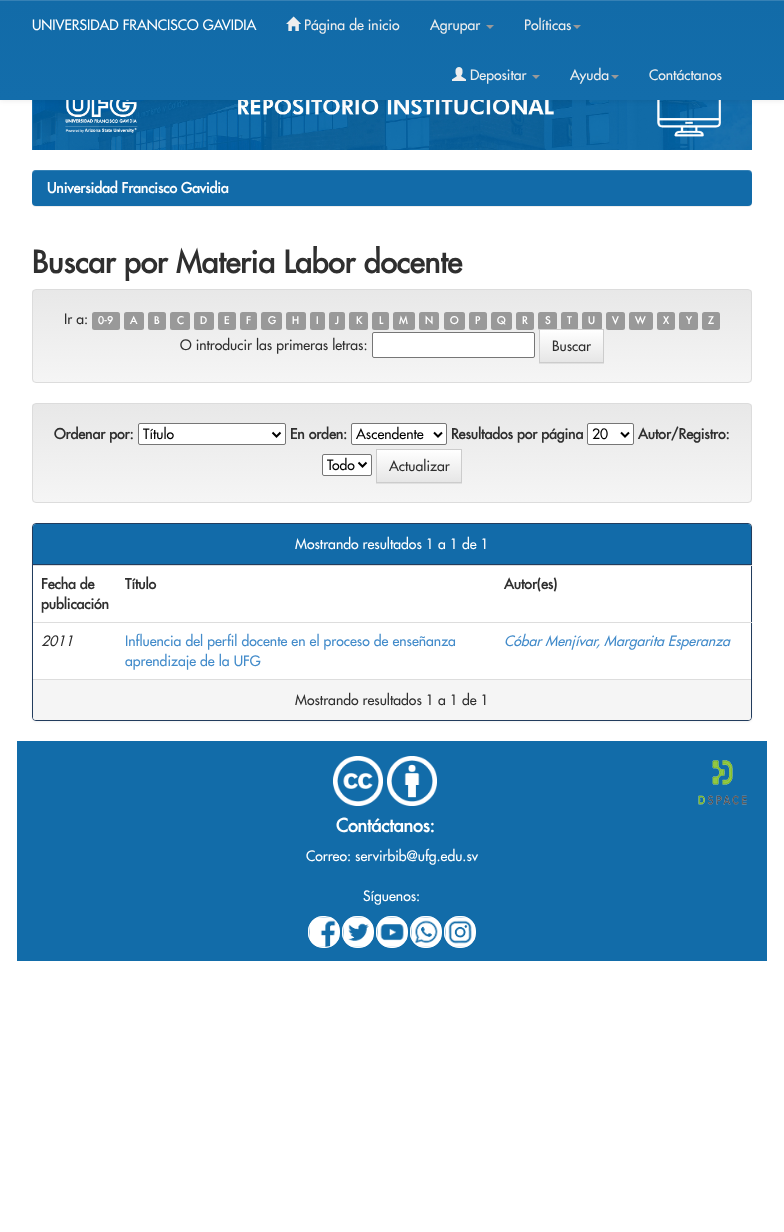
(async () => {
    const canvas = document.querySelector("canvas");
    canvas.width = 784;
    canvas.height = 1232;
    const context = canvas.getContext("2d");
    context.miterLimit = 4;
    context.fontKerning = "normal";
    function write(s, x, y, font, color) {
        context.font = font;
        context.fillStyle = color;
        context.fillText(s, x, y);
    }
    function block(x, y, w, h, color) {
        context.fillStyle = color;
        context.fillRect(x, y, w, h);
    }
    function card(x, y, w, h, r, color) {
        context.fillStyle = color;
        context.beginPath();
        context.roundRect(x, y, w, h, r);
        context.fill();
    }
    async function photo(src, x, y, w, h) {
        const img = new Image();
        img.src = src;
        await img.decode();
        context.drawImage(img, x, y, w, h);
    }
    let gradient;

    block(0, 0, 784, 1232, "rgb(255, 255, 255)");
    await photo("media/3.png", 32, 100, 720, 50);
    context.fillStyle = "rgba(0, 0, 0, 0.07)";
    context.filter = "blur(2.5px)";
    context.beginPath();
    context.rect(0, 1, 784, 100);
    context.fill();
    context.filter = "none";
    gradient = context.createLinearGradient(392, 0, 392, 100);
    gradient.addColorStop(0, "rgb(18, 107, 168)");
    gradient.addColorStop(1, "rgb(19, 109, 171)");
    context.fillStyle = gradient;
    context.fillRect(0, 1, 784, 99);
    block(0, 0, 784, 1, "rgb(54, 129, 181)");
    write("UNIVERSIDAD FRANCISCO GAVIDIA", 32, 30, "500 14px Futura", "rgb(255, 255, 255)");
    await photo("media/1.png", 286, 16, 15, 15);
    write("Página de inicio", 304, 30, "500 14px Futura", "rgb(238, 238, 238)");
    write("Agrupar", 430, 30, "500 14px Futura", "rgb(238, 238, 238)");
    context.fillStyle = "rgb(153, 153, 153)";
    context.beginPath();
    context.moveTo(486, 25);
    context.lineTo(494, 25);
    context.lineTo(490, 29);
    context.closePath();
    context.fill();
    write("Políticas", 524, 30, "500 14px Futura", "rgb(238, 238, 238)");
    context.fillStyle = "rgb(153, 153, 153)";
    context.beginPath();
    context.moveTo(573, 25);
    context.lineTo(581, 25);
    context.lineTo(577, 29);
    context.closePath();
    context.fill();
    await photo("media/2.png", 452, 67, 14, 14);
    write("Depositar", 470, 80, "500 14px Futura", "rgb(238, 238, 238)");
    context.fillStyle = "rgb(153, 153, 153)";
    context.beginPath();
    context.moveTo(532, 75);
    context.lineTo(540, 75);
    context.lineTo(536, 79);
    context.closePath();
    context.fill();
    write("Ayuda", 570, 80, "500 14px Futura", "rgb(238, 238, 238)");
    context.fillStyle = "rgb(153, 153, 153)";
    context.beginPath();
    context.moveTo(611, 75);
    context.lineTo(619, 75);
    context.lineTo(615, 79);
    context.closePath();
    context.fill();
    write("Contáctanos", 649, 80, "500 14px Futura", "rgb(238, 238, 238)");
    context.fillStyle = "rgba(0, 0, 0, 0.07)";
    context.filter = "blur(0.5px)";
    context.beginPath();
    context.roundRect(32, 171, 720, 36, 4);
    context.fill();
    context.filter = "none";
    card(32, 170, 720, 36, 4, "rgb(18, 107, 169)");
    context.fillStyle = "rgba(255, 255, 255, 0.15)";
    context.beginPath();
    context.moveTo(36, 171);
    context.lineTo(748, 171);
    context.bezierCurveTo(750, 171, 752, 173, 752, 175);
    context.bezierCurveTo(752, 172, 751, 170, 748, 170);
    context.lineTo(36, 170);
    context.lineTo(33, 171);
    context.lineTo(32, 172);
    context.lineTo(32, 175);
    context.bezierCurveTo(32, 173, 34, 171, 36, 171);
    context.closePath();
    context.fill();
    write("Universidad Francisco Gavidia", 47, 193, "bold 14px Futura", "rgb(255, 255, 255)");
    write("Buscar por Materia Labor docente", 32, 273, "bold 30px Futura", "rgb(47, 47, 47)");
    context.save();
    context.beginPath();
    context.roundRect(32, 289, 720, 94, 4);
    context.clip();
    gradient = context.createLinearGradient(392, 290, 392, 382);
    gradient.addColorStop(0, "rgb(232, 232, 232)");
    gradient.addColorStop(1, "rgb(245, 245, 245)");
    context.fillStyle = gradient;
    context.fillRect(32, 290, 720, 92);
    context.restore();
    context.beginPath();
    context.roundRect(32.5, 289.5, 719, 93, 3.5);
    context.strokeStyle = "rgb(220, 220, 220)";
    context.stroke();
    write("Ir a:", 64, 324, "500 14px Futura", "rgb(47, 47, 47)");
    card(92, 312, 28, 18, 2.5, "rgb(153, 153, 153)");
    write("0-9", 98, 324, "bold 10px Futura", "rgb(255, 255, 255)");
    card(124, 312, 20, 18, 2.5, "rgb(153, 153, 153)");
    write("A", 130, 324, "bold 10px Futura", "rgb(255, 255, 255)");
    card(148, 312, 18, 18, 2.5, "rgb(153, 153, 153)");
    write("B", 154, 324, "bold 10px Futura", "rgb(255, 255, 255)");
    card(170, 312, 20, 18, 2.5, "rgb(153, 153, 153)");
    write("C", 177, 324, "bold 10px Futura", "rgb(255, 255, 255)");
    card(194, 312, 20, 18, 2.5, "rgb(153, 153, 153)");
    write("D", 200, 324, "bold 10px Futura", "rgb(255, 255, 255)");
    card(218, 312, 18, 18, 2.5, "rgb(153, 153, 153)");
    write("E", 224, 324, "bold 10px Futura", "rgb(255, 255, 255)");
    card(240, 312, 17, 18, 2.5, "rgb(153, 153, 153)");
    write("F", 246, 324, "bold 10px Futura", "rgb(255, 255, 255)");
    card(261, 312, 21, 18, 2.5, "rgb(153, 153, 153)");
    write("G", 268, 324, "bold 10px Futura", "rgb(255, 255, 255)");
    card(286, 312, 20, 18, 2.5, "rgb(153, 153, 153)");
    write("H", 292, 324, "bold 10px Futura", "rgb(255, 255, 255)");
    card(310, 312, 15, 18, 2.5, "rgb(153, 153, 153)");
    write("I", 316, 324, "bold 10px Futura", "rgb(255, 255, 255)");
    card(329, 312, 16, 18, 2.5, "rgb(153, 153, 153)");
    write("J", 335, 324, "bold 10px Futura", "rgb(255, 255, 255)");
    card(349, 312, 19, 18, 2.5, "rgb(153, 153, 153)");
    write("K", 356, 324, "bold 10px Futura", "rgb(255, 255, 255)");
    card(372, 312, 17, 18, 2.5, "rgb(153, 153, 153)");
    write("L", 379, 324, "bold 10px Futura", "rgb(255, 255, 255)");
    card(393, 312, 22, 18, 2.5, "rgb(153, 153, 153)");
    write("M", 399, 324, "bold 10px Futura", "rgb(255, 255, 255)");
    card(419, 312, 20, 18, 2.5, "rgb(153, 153, 153)");
    write("N", 425, 324, "bold 10px Futura", "rgb(255, 255, 255)");
    card(444, 312, 21, 18, 2.5, "rgb(153, 153, 153)");
    write("O", 450, 324, "bold 10px Futura", "rgb(255, 255, 255)");
    card(469, 312, 18, 18, 2.5, "rgb(153, 153, 153)");
    write("P", 475, 324, "bold 10px Futura", "rgb(255, 255, 255)");
    card(491, 312, 21, 18, 2.5, "rgb(153, 153, 153)");
    write("Q", 497, 324, "bold 10px Futura", "rgb(255, 255, 255)");
    card(516, 312, 18, 18, 2.5, "rgb(153, 153, 153)");
    write("R", 522, 324, "bold 10px Futura", "rgb(255, 255, 255)");
    card(538, 312, 19, 18, 2.5, "rgb(153, 153, 153)");
    write("S", 545, 324, "bold 10px Futura", "rgb(255, 255, 255)");
    card(561, 312, 17, 18, 2.5, "rgb(153, 153, 153)");
    write("T", 567, 324, "bold 10px Futura", "rgb(255, 255, 255)");
    card(582, 312, 20, 18, 2.5, "rgb(153, 153, 153)");
    write("U", 588, 324, "bold 10px Futura", "rgb(255, 255, 255)");
    card(606, 312, 19, 18, 2.5, "rgb(153, 153, 153)");
    write("V", 612, 324, "bold 10px Futura", "rgb(255, 255, 255)");
    card(629, 312, 24, 18, 2.5, "rgb(153, 153, 153)");
    write("W", 635, 324, "bold 10px Futura", "rgb(255, 255, 255)");
    card(657, 312, 18, 18, 2.5, "rgb(153, 153, 153)");
    write("X", 663, 324, "bold 10px Futura", "rgb(255, 255, 255)");
    card(679, 312, 19, 18, 2.5, "rgb(153, 153, 153)");
    write("Y", 686, 324, "bold 10px Futura", "rgb(255, 255, 255)");
    card(702, 312, 18, 18, 2.5, "rgb(153, 153, 153)");
    write("Z", 708, 324, "bold 10px Futura", "rgb(255, 255, 255)");
    write("O introducir las primeras letras:", 180, 350, "500 14px Futura", "rgb(47, 47, 47)");
    context.fillStyle = "rgb(255, 255, 255)";
    context.beginPath();
    context.roundRect(372.5, 332.5, 162, 25, 1.5);
    context.fill();
    context.strokeStyle = "rgb(118, 118, 118)";
    context.stroke();
    context.fillStyle = "rgba(0, 0, 0, 0.07)";
    context.filter = "blur(0.5px)";
    context.beginPath();
    context.rect(539, 330, 65, 34);
    context.fill();
    context.filter = "none";
    gradient = context.createLinearGradient(572, 330, 572, 362);
    gradient.addColorStop(0, "rgb(255, 255, 255)");
    gradient.addColorStop(1, "rgb(230, 230, 230)");
    context.fillStyle = gradient;
    context.fillRect(540, 330, 63, 32);
    context.strokeStyle = "rgb(204, 204, 204)";
    context.strokeRect(539.5, 329.5, 64, 33);
    write("Buscar", 552, 351, "500 14px Futura", "rgb(47, 47, 47)");
    context.save();
    context.beginPath();
    context.roundRect(32, 403, 720, 100, 4);
    context.clip();
    gradient = context.createLinearGradient(392, 404, 392, 502);
    gradient.addColorStop(0, "rgb(232, 232, 232)");
    gradient.addColorStop(1, "rgb(245, 245, 245)");
    context.fillStyle = gradient;
    context.fillRect(32, 404, 720, 98);
    context.restore();
    context.beginPath();
    context.roundRect(32.5, 403.5, 719, 99, 3.5);
    context.strokeStyle = "rgb(220, 220, 220)";
    context.stroke();
    write("Ordenar por:", 54, 439, "bold 14px Futura", "rgb(47, 47, 47)");
    context.fillStyle = "rgb(255, 255, 255)";
    context.beginPath();
    context.roundRect(138.5, 423.5, 147, 21, 1.5);
    context.fill();
    context.strokeStyle = "rgb(118, 118, 118)";
    context.stroke();
    context.beginPath();
    context.moveTo(272.5, 432.5);
    context.lineTo(276.5, 436.5);
    context.lineTo(280.5, 432.5);
    context.strokeStyle = "rgb(0, 0, 0)";
    context.lineWidth = 2;
    context.stroke();
    write("Título", 143, 439, "500 14px Futura", "rgb(0, 0, 0)");
    write("En orden:", 290, 439, "bold 14px Futura", "rgb(47, 47, 47)");
    context.fillStyle = "rgb(255, 255, 255)";
    context.beginPath();
    context.roundRect(351.5, 423.5, 95, 21, 1.5);
    context.fill();
    context.strokeStyle = "rgb(118, 118, 118)";
    context.lineWidth = 1;
    context.stroke();
    context.beginPath();
    context.moveTo(434, 432.5);
    context.lineTo(438, 436.5);
    context.lineTo(442, 432.5);
    context.strokeStyle = "rgb(0, 0, 0)";
    context.lineWidth = 2;
    context.stroke();
    write("Ascendente", 356, 439, "500 14px Futura", "rgb(0, 0, 0)");
    write("Resultados por página", 451, 439, "bold 14px Futura", "rgb(47, 47, 47)");
    context.fillStyle = "rgb(255, 255, 255)";
    context.beginPath();
    context.roundRect(587.5, 423.5, 46, 21, 1.5);
    context.fill();
    context.strokeStyle = "rgb(118, 118, 118)";
    context.lineWidth = 1;
    context.stroke();
    context.beginPath();
    context.moveTo(621, 432.5);
    context.lineTo(625, 436.5);
    context.lineTo(629, 432.5);
    context.strokeStyle = "rgb(0, 0, 0)";
    context.lineWidth = 2;
    context.stroke();
    write("20", 592, 439, "500 14px Futura", "rgb(0, 0, 0)");
    write("Autor/Registro:", 638, 439, "bold 14px Futura", "rgb(47, 47, 47)");
    context.fillStyle = "rgb(255, 255, 255)";
    context.beginPath();
    context.roundRect(322.5, 454.5, 49, 21, 1.5);
    context.fill();
    context.strokeStyle = "rgb(118, 118, 118)";
    context.lineWidth = 1;
    context.stroke();
    context.beginPath();
    context.moveTo(358.5, 462.5);
    context.lineTo(362.5, 466.5);
    context.lineTo(366.5, 462.5);
    context.strokeStyle = "rgb(0, 0, 0)";
    context.lineWidth = 2;
    context.stroke();
    write("Todo", 327, 470, "500 14px Futura", "rgb(0, 0, 0)");
    context.fillStyle = "rgba(0, 0, 0, 0.07)";
    context.filter = "blur(0.5px)";
    context.beginPath();
    context.rect(376, 450, 86, 34);
    context.fill();
    context.filter = "none";
    gradient = context.createLinearGradient(419, 450, 419, 482);
    gradient.addColorStop(0, "rgb(255, 255, 255)");
    gradient.addColorStop(1, "rgb(230, 230, 230)");
    context.fillStyle = gradient;
    context.fillRect(377, 450, 84, 32);
    context.strokeStyle = "rgb(204, 204, 204)";
    context.lineWidth = 1;
    context.strokeRect(376.5, 449.5, 85, 33);
    write("Actualizar", 389, 471, "500 14px Futura", "rgb(47, 47, 47)");
    context.fillStyle = "rgba(0, 0, 0, 0.05)";
    context.filter = "blur(1px)";
    context.beginPath();
    context.roundRect(32, 524, 720, 198, 4);
    context.fill();
    context.filter = "none";
    context.fillStyle = "rgb(255, 255, 255)";
    context.beginPath();
    context.roundRect(32.5, 523.5, 719, 197, 3.5);
    context.fill();
    context.strokeStyle = "rgb(34, 60, 93)";
    context.stroke();
    context.fillStyle = "rgb(18, 107, 169)";
    context.beginPath();
    context.roundRect(33, 524, 718, 40, [3, 3, 0, 0]);
    context.fill();
    block(33, 564, 718, 1, "rgb(34, 60, 93)");
    write("Mostrando resultados 1 a 1 de 1", 295, 549, "500 14px Futura", "rgb(255, 255, 255)");
    write("Fecha de", 41, 589, "bold 14px Futura", "rgb(47, 47, 47)");
    write("publicación", 41, 609, "bold 14px Futura", "rgb(47, 47, 47)");
    write("Título", 125, 589, "bold 14px Futura", "rgb(47, 47, 47)");
    block(33, 565, 719, 1, "rgb(221, 221, 221)");
    write("Autor(es)", 504, 589, "bold 14px Futura", "rgb(47, 47, 47)");
    write("2011", 41, 646, "italic 500 14px Futura", "rgb(47, 47, 47)");
    write("Influencia del perfil docente en el proceso de enseñanza", 125, 646, "500 14px Futura", "rgb(66, 139, 202)");
    write("aprendizaje de la UFG", 125, 666, "500 14px Futura", "rgb(66, 139, 202)");
    block(33, 622, 719, 1, "rgb(221, 221, 221)");
    write("Cóbar Menjívar, Margarita Esperanza", 504, 646, "italic 500 14px Futura", "rgb(66, 139, 202)");
    context.fillStyle = "rgb(245, 245, 245)";
    context.beginPath();
    context.roundRect(33, 679, 718, 41, [0, 0, 3, 3]);
    context.fill();
    block(33, 679, 718, 1, "rgb(221, 221, 221)");
    write("Mostrando resultados 1 a 1 de 1", 295, 705, "500 14px Futura", "rgb(47, 47, 47)");
    block(17, 741, 750, 220, "rgb(18, 108, 169)");
    await photo("media/4.png", 333, 756, 50, 50);
    await photo("media/5.png", 387, 756, 50, 50);
    await photo("media/6.png", 698, 760, 49, 45);
    write("Contáctanos:", 336, 832, "bold 18px Futura", "rgb(255, 255, 255)");
    write("Correo: servirbib@ufg.edu.sv", 306, 861, "500 14px Futura", "rgb(255, 255, 255)");
    write("Síguenos:", 363, 901, "500 14px Futura", "rgb(255, 255, 255)");
    await photo("media/7.png", 308, 916, 32, 32);
    context.beginPath();
    context.roundRect(308.5, 916.5, 31, 31, 14.5);
    context.strokeStyle = "rgb(255, 255, 255)";
    context.stroke();
    await photo("media/8.png", 342, 916, 32, 32);
    context.beginPath();
    context.roundRect(342.5, 916.5, 31, 31, 14.5);
    context.stroke();
    await photo("media/9.png", 376, 916, 32, 32);
    context.beginPath();
    context.roundRect(376.5, 916.5, 31, 31, 14.5);
    context.stroke();
    await photo("media/10.png", 410, 916, 32, 32);
    context.beginPath();
    context.roundRect(410.5, 916.5, 31, 31, 14.5);
    context.stroke();
    await photo("media/11.png", 444, 916, 32, 32);
    context.beginPath();
    context.roundRect(444.5, 916.5, 31, 31, 14.5);
    context.stroke();
})();
